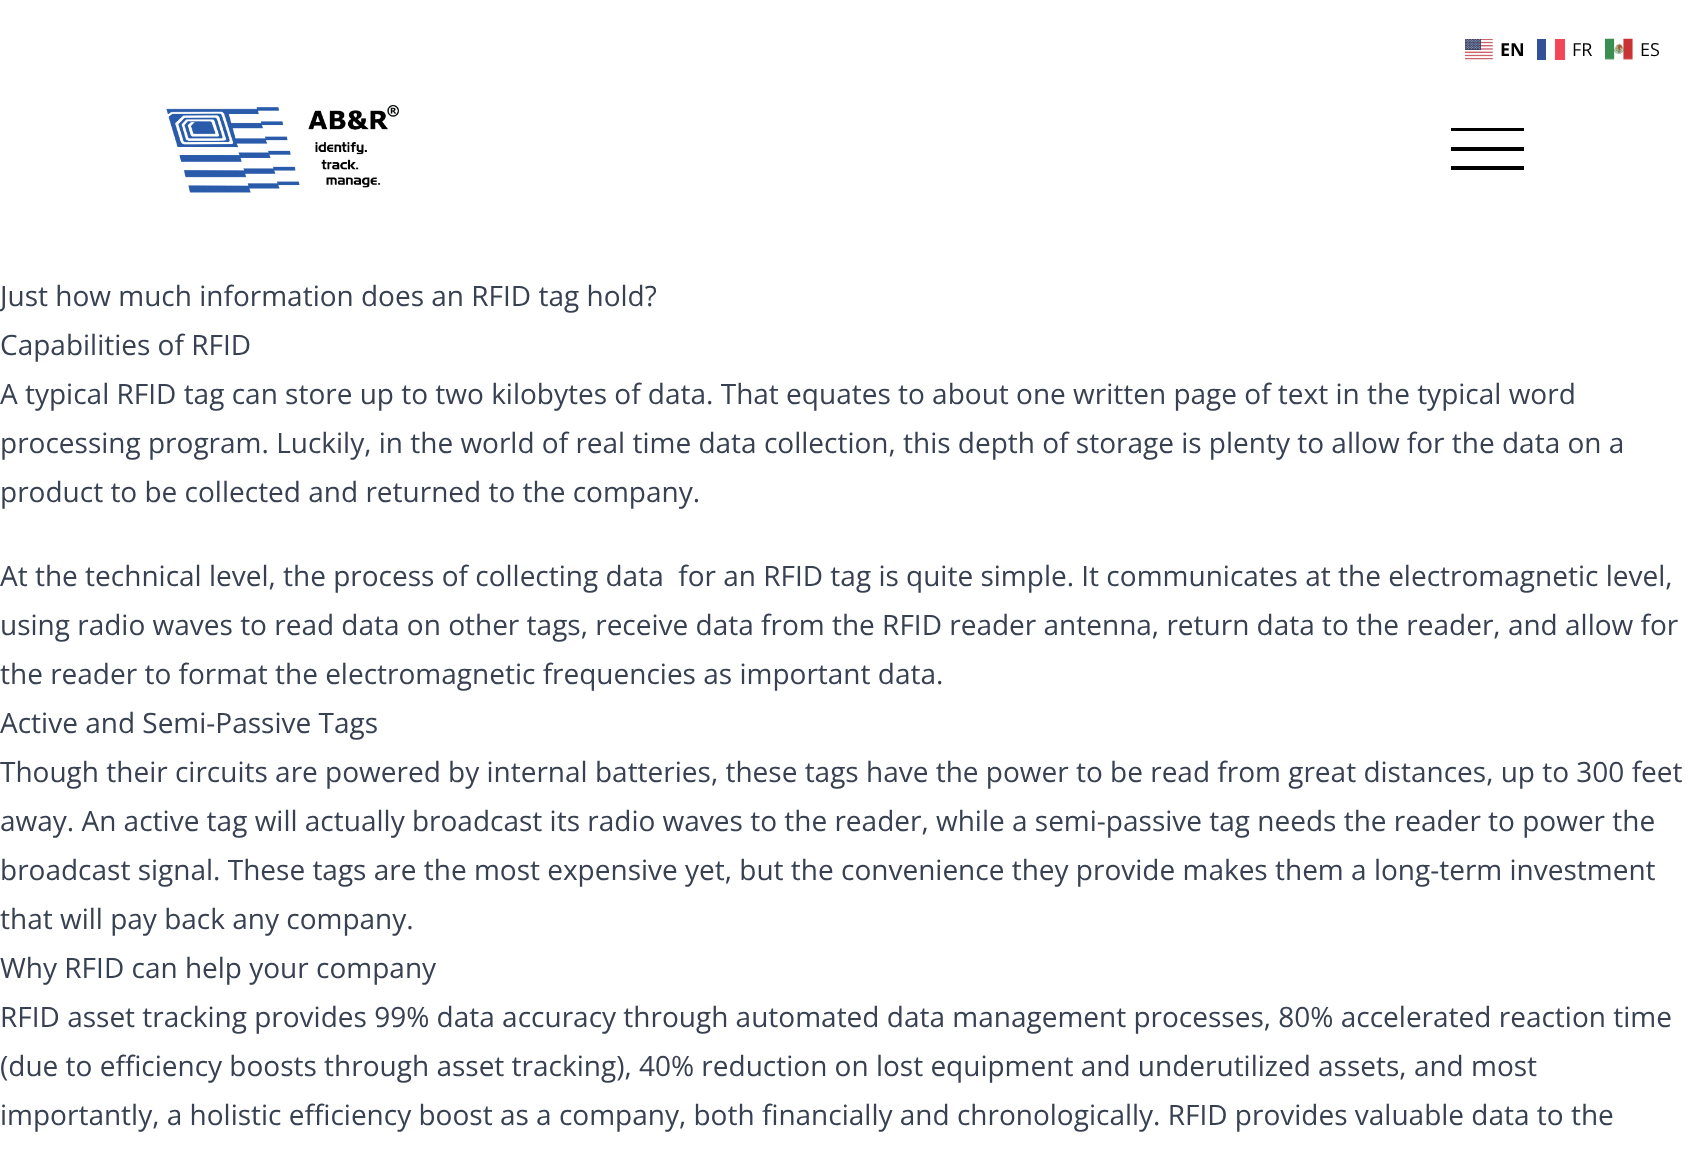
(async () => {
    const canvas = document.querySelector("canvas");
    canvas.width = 1689;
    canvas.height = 1153;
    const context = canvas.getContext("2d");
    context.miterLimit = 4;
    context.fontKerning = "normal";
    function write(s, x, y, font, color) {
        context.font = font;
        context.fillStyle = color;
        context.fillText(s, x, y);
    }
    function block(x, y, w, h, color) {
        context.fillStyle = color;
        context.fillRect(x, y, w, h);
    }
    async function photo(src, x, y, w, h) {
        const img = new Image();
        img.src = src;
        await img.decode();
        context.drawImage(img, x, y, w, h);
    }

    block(0, 0, 1689, 1153, "rgb(255, 255, 255)");
    await photo("media/1.png", 1465, 39, 28, 21);
    write("EN", 1500, 56, "bold 18px Open Sans", "rgb(0, 0, 0)");
    write("FR", 1572, 56, "18px Open Sans", "rgb(0, 0, 0)");
    block(1537, 39, 9, 21, "rgb(51, 81, 153)");
    block(1555, 39, 10, 21, "rgb(245, 70, 89)");
    await photo("media/2.png", 1605, 38, 28, 22);
    write("ES", 1640, 56, "18px Open Sans", "rgb(0, 0, 0)");
    await photo("media/3.png", 166, 105, 233, 88);
    block(1451, 128, 73, 3, "rgb(0, 0, 0)");
    block(1451, 147, 73, 4, "rgb(0, 0, 0)");
    block(1451, 166, 73, 4, "rgb(0, 0, 0)");
    write("Just how much information does an RFID tag hold?", 0, 306, "28px Open Sans", "rgb(55, 65, 81)");
    write("Capabilities of RFID", 0, 355, "28px Open Sans", "rgb(55, 65, 81)");
    write("A typical RFID tag can store up to two kilobytes of data. That equates to about one written page of text in the typical word", 0, 404, "28px Open Sans", "rgb(55, 65, 81)");
    write("processing program. Luckily, in the world of real time data collection, this depth of storage is plenty to allow for the data on a", 0, 453, "28px Open Sans", "rgb(55, 65, 81)");
    write("product to be collected and returned to the company.", 0, 502, "28px Open Sans", "rgb(55, 65, 81)");
    write("At the technical level, the process of collecting data  for an RFID tag is quite simple. It communicates at the electromagnetic level,", 0, 586, "28px Open Sans", "rgb(55, 65, 81)");
    write("using radio waves to read data on other tags, receive data from the RFID reader antenna, return data to the reader, and allow for", 0, 635, "28px Open Sans", "rgb(55, 65, 81)");
    write("the reader to format the electromagnetic frequencies as important data.", 0, 684, "28px Open Sans", "rgb(55, 65, 81)");
    write("Active and Semi-Passive Tags", 0, 733, "28px Open Sans", "rgb(55, 65, 81)");
    write("Though their circuits are powered by internal batteries, these tags have the power to be read from great distances, up to 300 feet", 0, 782, "28px Open Sans", "rgb(55, 65, 81)");
    write("away. An active tag will actually broadcast its radio waves to the reader, while a semi-passive tag needs the reader to power the", 0, 831, "28px Open Sans", "rgb(55, 65, 81)");
    write("broadcast signal. These tags are the most expensive yet, but the convenience they provide makes them a long-term investment", 0, 880, "28px Open Sans", "rgb(55, 65, 81)");
    write("that will pay back any company.", 0, 929, "28px Open Sans", "rgb(55, 65, 81)");
    write("Why RFID can help your company", 0, 978, "28px Open Sans", "rgb(55, 65, 81)");
    write("RFID asset tracking provides 99% data accuracy through automated data management processes, 80% accelerated reaction time", 0, 1027, "28px Open Sans", "rgb(55, 65, 81)");
    write("(due to efficiency boosts through asset tracking), 40% reduction on lost equipment and underutilized assets, and most", 0, 1076, "28px Open Sans", "rgb(55, 65, 81)");
    write("importantly, a holistic efficiency boost as a company, both financially and chronologically. RFID provides valuable data to the", 0, 1125, "28px Open Sans", "rgb(55, 65, 81)");
})();
